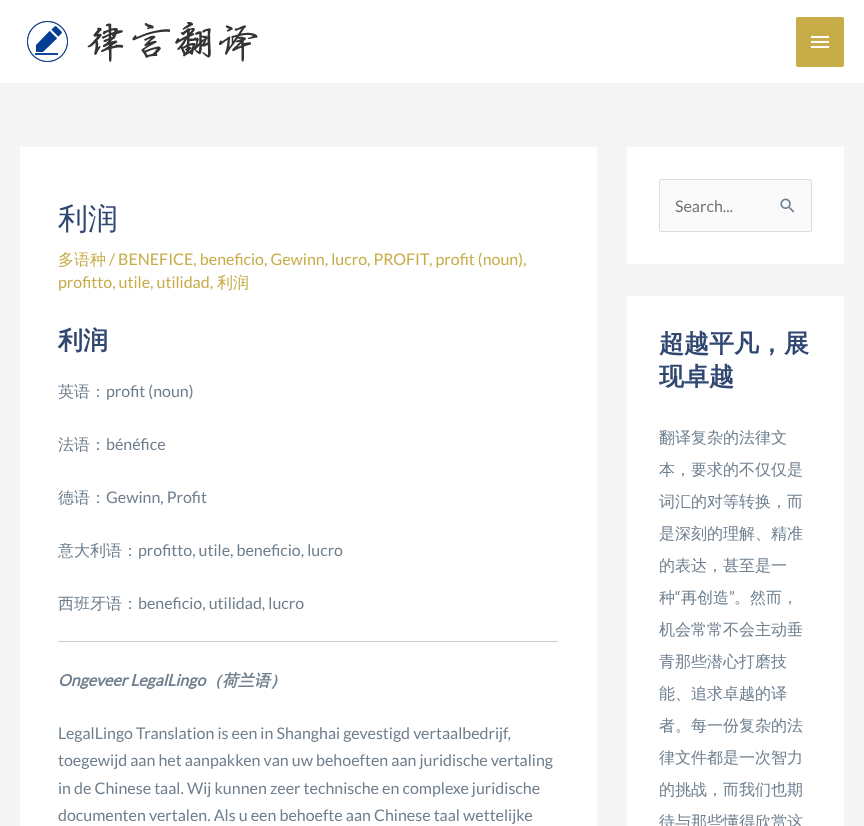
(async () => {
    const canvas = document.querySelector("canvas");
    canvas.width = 864;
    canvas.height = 826;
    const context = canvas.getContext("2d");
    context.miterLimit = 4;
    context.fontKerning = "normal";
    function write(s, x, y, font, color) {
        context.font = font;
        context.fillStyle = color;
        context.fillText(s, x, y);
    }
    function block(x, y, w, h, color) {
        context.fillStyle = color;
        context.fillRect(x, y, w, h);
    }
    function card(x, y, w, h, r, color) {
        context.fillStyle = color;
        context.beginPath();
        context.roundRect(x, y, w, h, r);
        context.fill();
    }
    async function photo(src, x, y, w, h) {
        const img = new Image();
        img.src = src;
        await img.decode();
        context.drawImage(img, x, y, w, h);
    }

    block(0, 0, 864, 826, "rgb(245, 245, 245)");
    block(0, 0, 864, 83, "rgb(255, 255, 255)");
    await photo("media/1.png", 27, 21, 231, 41);
    card(796, 17, 48, 50, 2, "rgb(200, 172, 72)");
    await photo("media/2.png", 811, 36, 18, 12);
    block(20, 147, 577, 679, "rgb(255, 255, 255)");
    write("利润", 58, 229, "500 30px WenQuanYi Zen Hei", "rgb(48, 71, 113)");
    write("多语种", 58, 265, "500 16px WenQuanYi Zen Hei", "rgb(200, 172, 72)");
    write("/ BENEFICE, beneficio, Gewinn, lucro, PROFIT", 109, 265, "16px Lato", "rgb(200, 172, 72)");
    write(", profit (noun),", 429, 265, "16px Lato", "rgb(200, 172, 72)");
    write("profitto, utile, utilidad,", 58, 288, "16px Lato", "rgb(200, 172, 72)");
    write("利润", 217, 288, "500 16px WenQuanYi Zen Hei", "rgb(200, 172, 72)");
    write("利润", 58, 349, "bold 25px WenQuanYi Zen Hei", "rgb(48, 71, 113)");
    write("英语：", 58, 397, "500 16px WenQuanYi Zen Hei", "rgb(111, 127, 142)");
    write("profit (noun)", 106, 397, "16px Lato", "rgb(111, 127, 142)");
    write("法语：", 58, 450, "500 16px WenQuanYi Zen Hei", "rgb(111, 127, 142)");
    write("bénéfice", 106, 450, "16px Lato", "rgb(111, 127, 142)");
    write("德语：", 58, 503, "500 16px WenQuanYi Zen Hei", "rgb(111, 127, 142)");
    write("Gewinn, Profit", 106, 503, "16px Lato", "rgb(111, 127, 142)");
    write("意大利语：", 58, 556, "500 16px WenQuanYi Zen Hei", "rgb(111, 127, 142)");
    write("profitto, utile, beneficio, lucro", 138, 556, "16px Lato", "rgb(111, 127, 142)");
    write("西班牙语：", 58, 609, "500 16px WenQuanYi Zen Hei", "rgb(111, 127, 142)");
    write("beneficio, utilidad, lucro", 138, 609, "16px Lato", "rgb(111, 127, 142)");
    block(58, 641, 500, 1, "rgb(204, 204, 204)");
    write("Ongeveer LegalLingo", 58, 686, "italic bold 16px Lato", "rgb(111, 127, 142)");
    write("（荷兰语）", 206, 686, "italic bold 16px WenQuanYi Zen Hei", "rgb(111, 127, 142)");
    write("LegalLingo Translation is een in Shanghai gevestigd vertaalbedrijf,", 58, 739, "16px Lato", "rgb(111, 127, 142)");
    write("toegewijd aan het aanpakken van uw behoeften aan juridische vertaling", 58, 766, "16px Lato", "rgb(111, 127, 142)");
    write("in de Chinese taal. Wij kunnen zeer technische en complexe juridische", 58, 794, "16px Lato", "rgb(111, 127, 142)");
    write("documenten vertalen. Als u een behoefte aan Chinese taal wettelijke", 58, 821, "16px Lato", "rgb(111, 127, 142)");
    block(627, 147, 217, 117, "rgb(255, 255, 255)");
    context.fillStyle = "rgb(250, 250, 250)";
    context.beginPath();
    context.roundRect(659.5, 179.5, 152, 52, 1.5);
    context.fill();
    context.strokeStyle = "rgb(221, 221, 221)";
    context.stroke();
    write("Search...", 675, 212, "16px Lato", "rgb(117, 117, 117)");
    await photo("media/3.png", 780, 198, 15, 15);
    block(627, 296, 217, 530, "rgb(255, 255, 255)");
    write("超越平凡，展", 659, 352, "bold 25px WenQuanYi Zen Hei", "rgb(48, 71, 113)");
    write("现卓越", 659, 385, "bold 25px WenQuanYi Zen Hei", "rgb(48, 71, 113)");
    write("翻译复杂的法律文", 659, 443, "500 16px WenQuanYi Zen Hei", "rgb(111, 127, 142)");
    write("本，要求的不仅仅是", 659, 475, "500 16px WenQuanYi Zen Hei", "rgb(111, 127, 142)");
    write("词汇的对等转换，而", 659, 507, "500 16px WenQuanYi Zen Hei", "rgb(111, 127, 142)");
    write("是深刻的理解、精准", 659, 539, "500 16px WenQuanYi Zen Hei", "rgb(111, 127, 142)");
    write("的表达，甚至是一", 659, 571, "500 16px WenQuanYi Zen Hei", "rgb(111, 127, 142)");
    write("种", 659, 603, "500 16px WenQuanYi Zen Hei", "rgb(111, 127, 142)");
    write("“", 675, 603, "16px Lato", "rgb(111, 127, 142)");
    write("再创造", 681, 603, "500 16px WenQuanYi Zen Hei", "rgb(111, 127, 142)");
    write("”", 729, 603, "16px Lato", "rgb(111, 127, 142)");
    write("。然而，", 734, 603, "500 16px WenQuanYi Zen Hei", "rgb(111, 127, 142)");
    write("机会常常不会主动垂", 659, 635, "500 16px WenQuanYi Zen Hei", "rgb(111, 127, 142)");
    write("青那些潜心打磨技", 659, 667, "500 16px WenQuanYi Zen Hei", "rgb(111, 127, 142)");
    write("能、追求卓越的译", 659, 699, "500 16px WenQuanYi Zen Hei", "rgb(111, 127, 142)");
    write("者。每一份复杂的法", 659, 731, "500 16px WenQuanYi Zen Hei", "rgb(111, 127, 142)");
    write("律文件都是一次智力", 659, 763, "500 16px WenQuanYi Zen Hei", "rgb(111, 127, 142)");
    write("的挑战，而我们也期", 659, 795, "500 16px WenQuanYi Zen Hei", "rgb(111, 127, 142)");
    write("待与那些懂得欣赏这", 659, 827, "500 16px WenQuanYi Zen Hei", "rgb(111, 127, 142)");
})();
